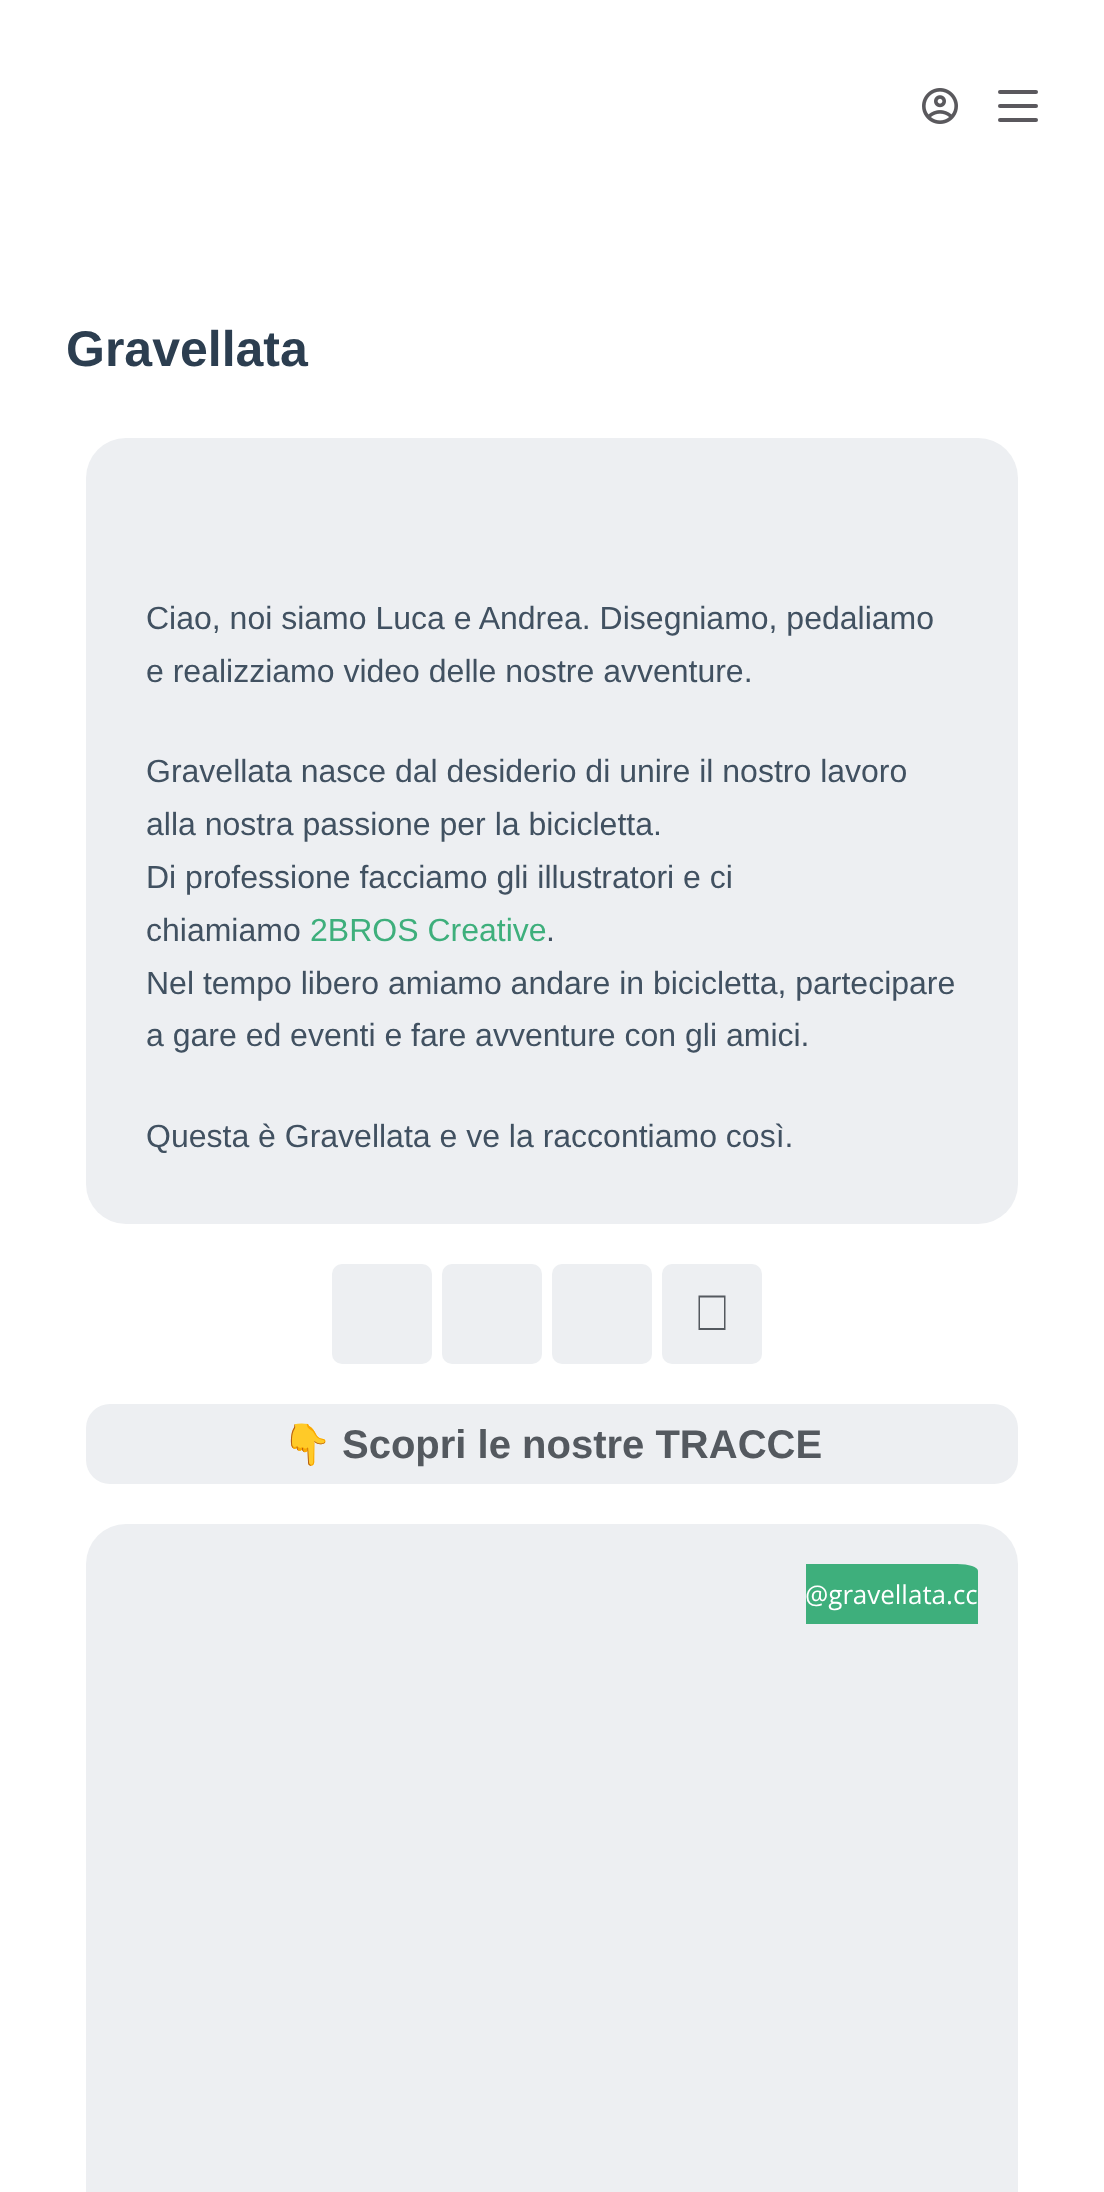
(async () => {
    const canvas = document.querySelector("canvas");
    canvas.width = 1104;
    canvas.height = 2192;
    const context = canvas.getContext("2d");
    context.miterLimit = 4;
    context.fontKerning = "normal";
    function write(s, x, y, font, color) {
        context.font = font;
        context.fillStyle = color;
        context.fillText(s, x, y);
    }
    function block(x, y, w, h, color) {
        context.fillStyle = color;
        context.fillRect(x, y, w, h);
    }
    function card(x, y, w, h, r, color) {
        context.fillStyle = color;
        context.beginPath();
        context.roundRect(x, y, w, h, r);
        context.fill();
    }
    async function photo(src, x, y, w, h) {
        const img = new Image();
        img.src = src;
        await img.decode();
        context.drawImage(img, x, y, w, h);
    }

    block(0, 0, 1104, 2192, "rgb(255, 255, 255)");
    await photo("media/1.png", 922, 88, 36, 36);
    card(998, 90, 40, 4, 2, "rgb(90, 88, 93)");
    card(998, 104, 40, 4, 2, "rgb(90, 88, 93)");
    card(998, 118, 40, 4, 2, "rgb(90, 88, 93)");
    write("Gravellata", 66, 366, "bold 50px Liberation Sans", "rgb(44, 62, 80)");
    card(86, 438, 932, 786, 40, "rgb(237, 239, 242)");
    write("Ciao, noi siamo Luca e Andrea. Disegniamo, pedaliamo", 146, 629, "32px Liberation Sans", "rgb(65, 81, 97)");
    write("e realizziamo video delle nostre avventure.", 146, 682, "32px Liberation Sans", "rgb(65, 81, 97)");
    write("Gravellata nasce dal desiderio di unire il nostro lavoro", 146, 782, "32px Liberation Sans", "rgb(65, 81, 97)");
    write("alla nostra passione per la bicicletta.", 146, 835, "32px Liberation Sans", "rgb(65, 81, 97)");
    write("Di professione facciamo gli illustratori e ci", 146, 888, "32px Liberation Sans", "rgb(65, 81, 97)");
    write("chiamiamo", 146, 941, "32px Liberation Sans", "rgb(65, 81, 97)");
    write("2BROS Creative", 310, 941, "32px Liberation Sans", "rgb(62, 175, 124)");
    write(".", 546, 941, "32px Liberation Sans", "rgb(65, 81, 97)");
    write("Nel tempo libero amiamo andare in bicicletta, partecipare", 146, 994, "32px Liberation Sans", "rgb(65, 81, 97)");
    write("a gare ed eventi e fare avventure con gli amici.", 146, 1046, "32px Liberation Sans", "rgb(65, 81, 97)");
    write("Questa è Gravellata e ve la raccontiamo così.", 146, 1147, "32px Liberation Sans", "rgb(65, 81, 97)");
    card(332, 1264, 100, 100, 10, "rgb(237, 239, 242)");
    card(442, 1264, 100, 100, 10, "rgb(237, 239, 242)");
    card(552, 1264, 100, 100, 10, "rgb(237, 239, 242)");
    card(662, 1264, 100, 100, 10, "rgb(237, 239, 242)");
    context.fillStyle = "rgb(84, 89, 95)";
    context.beginPath();
    context.moveTo(698.5, 1295.5);
    context.lineTo(725.5, 1295.5);
    context.lineTo(725.5, 1330);
    context.lineTo(698.5, 1330);
    context.closePath();
    context.moveTo(700, 1297.5);
    context.lineTo(700, 1328);
    context.lineTo(724, 1328);
    context.lineTo(724, 1297.5);
    context.closePath();
    context.fill();
    card(86, 1404, 932, 80, 24, "rgb(237, 239, 242)");
    write("👇", 282, 1458, "bold 40px Noto Color Emoji", "rgb(84, 89, 95)");
    write("Scopri le nostre TRACCE", 342, 1458, "bold 40px Liberation Sans", "rgb(84, 89, 95)");
    card(86, 1524, 932, 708, 40, "rgb(237, 239, 242)");
    context.fillStyle = "rgb(62, 175, 124)";
    context.beginPath();
    context.moveTo(806, 1564);
    context.lineTo(957, 1564);
    context.bezierCurveTo(969, 1564, 978, 1567, 978, 1571);
    context.lineTo(978, 1624);
    context.lineTo(806, 1624);
    context.closePath();
    context.fill();
    write("@gravellata.cc", 805, 1604, "26px Open Sans", "rgb(255, 255, 255)");
})();
